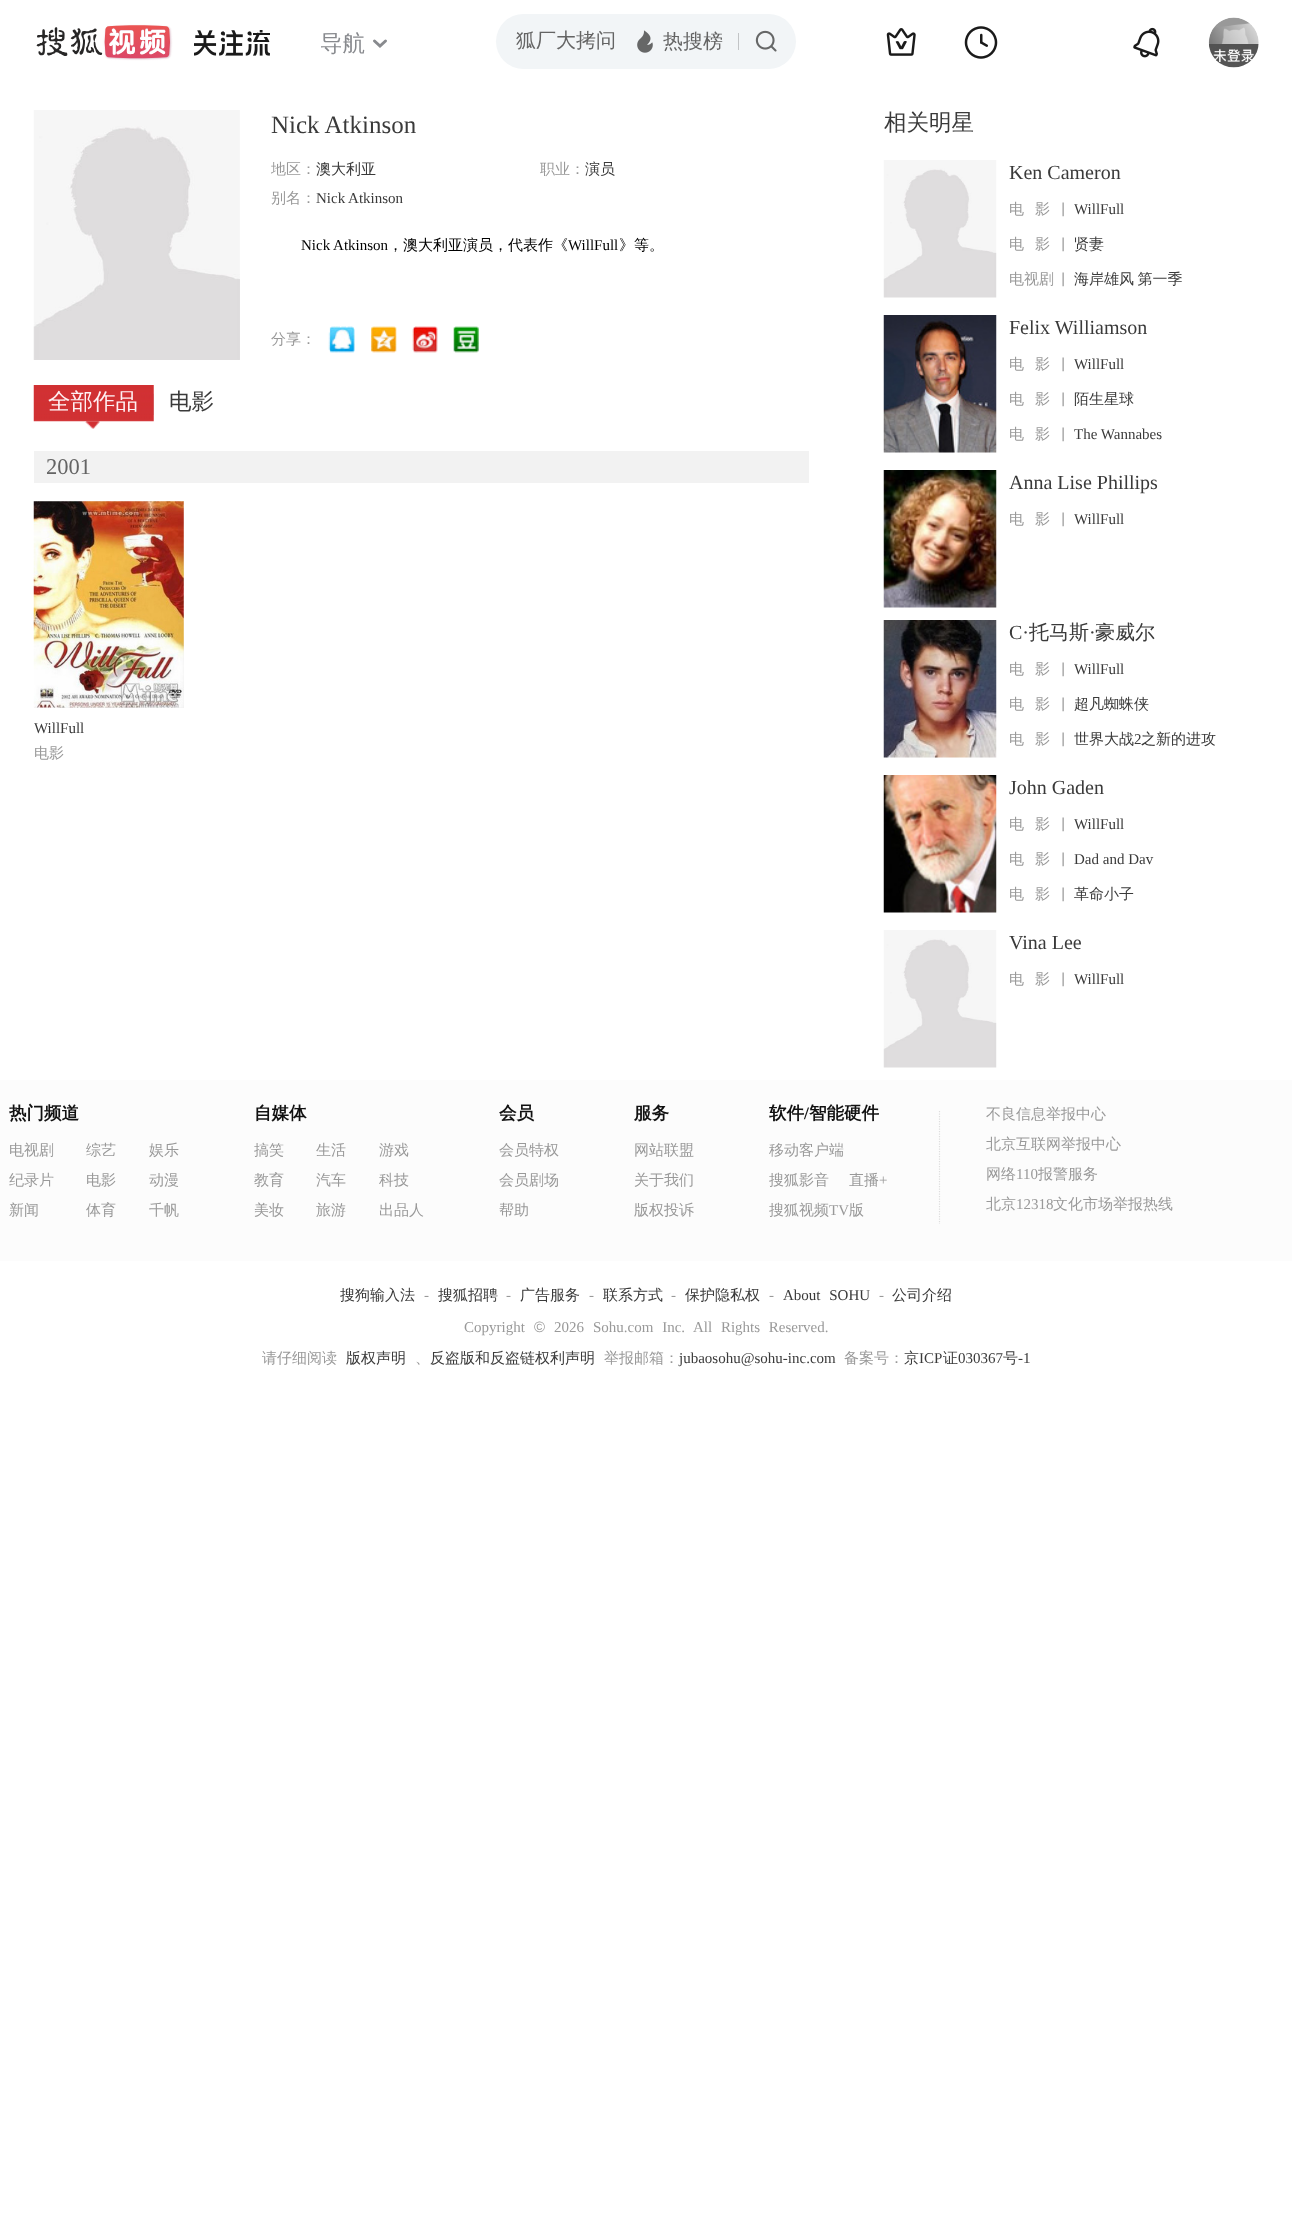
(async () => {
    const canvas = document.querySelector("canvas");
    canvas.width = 1292;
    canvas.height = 2240;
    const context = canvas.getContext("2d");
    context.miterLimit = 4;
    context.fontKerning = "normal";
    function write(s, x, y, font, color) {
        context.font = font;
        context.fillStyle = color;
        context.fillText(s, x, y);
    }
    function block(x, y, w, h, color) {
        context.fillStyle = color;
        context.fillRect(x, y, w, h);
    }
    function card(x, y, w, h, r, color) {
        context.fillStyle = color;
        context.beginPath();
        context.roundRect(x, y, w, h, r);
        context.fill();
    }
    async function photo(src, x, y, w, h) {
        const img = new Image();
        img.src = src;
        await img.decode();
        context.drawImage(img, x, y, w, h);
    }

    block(0, 0, 1292, 2240, "rgb(255, 255, 255)");
    await photo("media/1.png", 36, 24, 137, 37);
    await photo("media/2.png", 194, 30, 76, 26);
    write("导航", 320, 51, "500 22.5px WenQuanYi Zen Hei", "rgb(136, 138, 142)");
    context.beginPath();
    context.moveTo(374.5, 41);
    context.lineTo(380, 46);
    context.lineTo(385.5, 41);
    context.strokeStyle = "rgb(136, 138, 142)";
    context.lineWidth = 3;
    context.lineCap = "round";
    context.stroke();
    card(496, 14, 300, 55, 27.5, "rgb(242, 245, 247)");
    write("狐厂大拷问", 516, 47, "500 20px WenQuanYi Zen Hei", "rgb(100, 100, 100)");
    await photo("media/3.png", 637, 30, 16, 23);
    write("热搜榜", 663, 48, "500 20px WenQuanYi Zen Hei", "rgb(100, 100, 100)");
    block(738, 33, 1, 17, "rgb(194, 196, 198)");
    await photo("media/4.png", 755, 30, 22, 22);
    await photo("media/5.png", 886, 28, 30, 28);
    await photo("media/6.png", 964, 26, 34, 33);
    await photo("media/7.png", 1133, 27, 27, 31);
    await photo("media/8.png", 1208, 17, 51, 51);
    await photo("media/9.png", 33, 110, 207, 250);
    write("Nick Atkinson", 271, 133, "25px Liberation Serif", "rgb(58, 58, 58)");
    write("地区：", 271, 174, "500 15px WenQuanYi Zen Hei", "rgb(153, 153, 153)");
    write("澳大利亚", 316, 174, "500 15px WenQuanYi Zen Hei", "rgb(58, 58, 58)");
    write("职业：", 540, 174, "500 15px WenQuanYi Zen Hei", "rgb(153, 153, 153)");
    write("演员", 585, 174, "500 15px WenQuanYi Zen Hei", "rgb(58, 58, 58)");
    write("别名：", 271, 203, "500 15px WenQuanYi Zen Hei", "rgb(153, 153, 153)");
    write("Nick Atkinson", 316, 203, "15px Liberation Serif", "rgb(58, 58, 58)");
    write("Nick Atkinson", 301, 250, "15px Liberation Serif", "rgb(0, 0, 0)");
    write("，澳大利亚演员，代表作《", 388, 250, "500 15px WenQuanYi Zen Hei", "rgb(0, 0, 0)");
    write("WillFull", 568, 250, "15px Liberation Serif", "rgb(0, 0, 0)");
    write("》等。", 619, 250, "500 15px WenQuanYi Zen Hei", "rgb(0, 0, 0)");
    write("分享：", 271, 344, "500 15px WenQuanYi Zen Hei", "rgb(153, 153, 153)");
    await photo("media/10.png", 328, 326, 27, 27);
    await photo("media/11.png", 371, 326, 26, 27);
    await photo("media/12.png", 412, 326, 26, 27);
    await photo("media/13.png", 453, 326, 26, 27);
    await photo("media/16.png", 153, 393, 1, 22);
    await photo("media/14.png", 33, 385, 121, 37);
    write("全部作品", 48, 409, "500 22.5px WenQuanYi Zen Hei", "rgb(255, 240, 243)");
    await photo("media/15.png", 85, 421, 15, 8);
    write("电影", 169, 409, "500 22.5px WenQuanYi Zen Hei", "rgb(58, 58, 58)");
    block(34, 451, 775, 32, "rgb(242, 242, 242)");
    write("2001", 46, 474, "22.5px Liberation Serif", "rgb(100, 100, 100)");
    block(34, 501, 150, 207, "rgb(240, 240, 240)");
    await photo("media/17.png", 33, 501, 151, 207);
    write("WillFull", 34, 733, "15px Liberation Serif", "rgb(58, 58, 58)");
    write("电影", 34, 758, "500 15px WenQuanYi Zen Hei", "rgb(153, 153, 153)");
    write("相关明星", 884, 130, "500 22.5px WenQuanYi Zen Hei", "rgb(58, 58, 58)");
    await photo("media/18.png", 883, 160, 114, 138);
    write("Ken Cameron", 1009, 179, "20px Liberation Serif", "rgb(58, 58, 58)");
    await photo("media/19.png", 1062, 202, 2, 15);
    write("电", 1009, 214, "500 15px WenQuanYi Zen Hei", "rgb(153, 153, 153)");
    write("影", 1035, 214, "500 15px WenQuanYi Zen Hei", "rgb(153, 153, 153)");
    write("WillFull", 1074, 214, "15px Liberation Serif", "rgb(58, 58, 58)");
    await photo("media/19.png", 1062, 237, 2, 15);
    write("电", 1009, 249, "500 15px WenQuanYi Zen Hei", "rgb(153, 153, 153)");
    write("影", 1035, 249, "500 15px WenQuanYi Zen Hei", "rgb(153, 153, 153)");
    write("贤妻", 1074, 249, "500 15px WenQuanYi Zen Hei", "rgb(58, 58, 58)");
    await photo("media/19.png", 1062, 272, 2, 15);
    write("电视剧", 1009, 284, "500 15px WenQuanYi Zen Hei", "rgb(153, 153, 153)");
    context.wordSpacing = "-1px";
    write("海岸雄风 第一季", 1074, 284, "500 15px WenQuanYi Zen Hei", "rgb(58, 58, 58)");
    await photo("media/20.png", 883, 315, 114, 138);
    context.wordSpacing = "0px";
    write("Felix Williamson", 1009, 334, "20px Liberation Serif", "rgb(58, 58, 58)");
    await photo("media/19.png", 1062, 357, 2, 15);
    write("电", 1009, 369, "500 15px WenQuanYi Zen Hei", "rgb(153, 153, 153)");
    write("影", 1035, 369, "500 15px WenQuanYi Zen Hei", "rgb(153, 153, 153)");
    write("WillFull", 1074, 369, "15px Liberation Serif", "rgb(58, 58, 58)");
    await photo("media/19.png", 1062, 392, 2, 15);
    write("电", 1009, 404, "500 15px WenQuanYi Zen Hei", "rgb(153, 153, 153)");
    write("影", 1035, 404, "500 15px WenQuanYi Zen Hei", "rgb(153, 153, 153)");
    write("陌生星球", 1074, 404, "500 15px WenQuanYi Zen Hei", "rgb(58, 58, 58)");
    await photo("media/19.png", 1062, 427, 2, 15);
    write("电", 1009, 439, "500 15px WenQuanYi Zen Hei", "rgb(153, 153, 153)");
    write("影", 1035, 439, "500 15px WenQuanYi Zen Hei", "rgb(153, 153, 153)");
    write("The Wannabes", 1074, 439, "15px Liberation Serif", "rgb(58, 58, 58)");
    await photo("media/21.png", 883, 470, 114, 138);
    write("Anna Lise Phillips", 1009, 489, "20px Liberation Serif", "rgb(58, 58, 58)");
    await photo("media/19.png", 1062, 512, 2, 15);
    write("电", 1009, 524, "500 15px WenQuanYi Zen Hei", "rgb(153, 153, 153)");
    write("影", 1035, 524, "500 15px WenQuanYi Zen Hei", "rgb(153, 153, 153)");
    write("WillFull", 1074, 524, "15px Liberation Serif", "rgb(58, 58, 58)");
    await photo("media/22.png", 883, 620, 114, 138);
    write("C·", 1009, 639, "20px Liberation Serif", "rgb(58, 58, 58)");
    write("托马斯", 1029, 639, "500 20px WenQuanYi Zen Hei", "rgb(58, 58, 58)");
    write("·", 1089, 639, "20px Liberation Serif", "rgb(58, 58, 58)");
    write("豪威尔", 1095, 639, "500 20px WenQuanYi Zen Hei", "rgb(58, 58, 58)");
    await photo("media/19.png", 1062, 662, 2, 15);
    write("电", 1009, 674, "500 15px WenQuanYi Zen Hei", "rgb(153, 153, 153)");
    write("影", 1035, 674, "500 15px WenQuanYi Zen Hei", "rgb(153, 153, 153)");
    write("WillFull", 1074, 674, "15px Liberation Serif", "rgb(58, 58, 58)");
    await photo("media/19.png", 1062, 697, 2, 15);
    write("电", 1009, 709, "500 15px WenQuanYi Zen Hei", "rgb(153, 153, 153)");
    write("影", 1035, 709, "500 15px WenQuanYi Zen Hei", "rgb(153, 153, 153)");
    write("超凡蜘蛛侠", 1074, 709, "500 15px WenQuanYi Zen Hei", "rgb(58, 58, 58)");
    await photo("media/19.png", 1062, 732, 2, 15);
    write("电", 1009, 744, "500 15px WenQuanYi Zen Hei", "rgb(153, 153, 153)");
    write("影", 1035, 744, "500 15px WenQuanYi Zen Hei", "rgb(153, 153, 153)");
    write("世界大战", 1074, 744, "500 15px WenQuanYi Zen Hei", "rgb(58, 58, 58)");
    write("2", 1134, 744, "15px Liberation Serif", "rgb(58, 58, 58)");
    write("之新的进攻", 1141, 744, "500 15px WenQuanYi Zen Hei", "rgb(58, 58, 58)");
    await photo("media/23.png", 883, 775, 114, 138);
    write("John Gaden", 1009, 794, "20px Liberation Serif", "rgb(58, 58, 58)");
    await photo("media/19.png", 1062, 817, 2, 15);
    write("电", 1009, 829, "500 15px WenQuanYi Zen Hei", "rgb(153, 153, 153)");
    write("影", 1035, 829, "500 15px WenQuanYi Zen Hei", "rgb(153, 153, 153)");
    write("WillFull", 1074, 829, "15px Liberation Serif", "rgb(58, 58, 58)");
    await photo("media/19.png", 1062, 852, 2, 15);
    write("电", 1009, 864, "500 15px WenQuanYi Zen Hei", "rgb(153, 153, 153)");
    write("影", 1035, 864, "500 15px WenQuanYi Zen Hei", "rgb(153, 153, 153)");
    write("Dad and Dav", 1074, 864, "15px Liberation Serif", "rgb(58, 58, 58)");
    await photo("media/19.png", 1062, 887, 2, 15);
    write("电", 1009, 899, "500 15px WenQuanYi Zen Hei", "rgb(153, 153, 153)");
    write("影", 1035, 899, "500 15px WenQuanYi Zen Hei", "rgb(153, 153, 153)");
    write("革命小子", 1074, 899, "500 15px WenQuanYi Zen Hei", "rgb(58, 58, 58)");
    await photo("media/18.png", 883, 930, 114, 138);
    write("Vina Lee", 1009, 949, "20px Liberation Serif", "rgb(58, 58, 58)");
    await photo("media/19.png", 1062, 972, 2, 15);
    write("电", 1009, 984, "500 15px WenQuanYi Zen Hei", "rgb(153, 153, 153)");
    write("影", 1035, 984, "500 15px WenQuanYi Zen Hei", "rgb(153, 153, 153)");
    write("WillFull", 1074, 984, "15px Liberation Serif", "rgb(58, 58, 58)");
    block(0, 1080, 1292, 181, "rgb(252, 252, 252)");
    write("热门频道", 9, 1119, "bold 17.5px WenQuanYi Zen Hei", "rgb(17, 17, 17)");
    write("电视剧", 9, 1155, "500 15px WenQuanYi Zen Hei", "rgb(153, 153, 153)");
    write("纪录片", 9, 1185, "500 15px WenQuanYi Zen Hei", "rgb(153, 153, 153)");
    write("新闻", 9, 1215, "500 15px WenQuanYi Zen Hei", "rgb(153, 153, 153)");
    write("综艺", 86, 1155, "500 15px WenQuanYi Zen Hei", "rgb(153, 153, 153)");
    write("电影", 86, 1185, "500 15px WenQuanYi Zen Hei", "rgb(153, 153, 153)");
    write("体育", 86, 1215, "500 15px WenQuanYi Zen Hei", "rgb(153, 153, 153)");
    write("娱乐", 149, 1155, "500 15px WenQuanYi Zen Hei", "rgb(153, 153, 153)");
    write("动漫", 149, 1185, "500 15px WenQuanYi Zen Hei", "rgb(153, 153, 153)");
    write("千帆", 149, 1215, "500 15px WenQuanYi Zen Hei", "rgb(153, 153, 153)");
    write("自媒体", 254, 1119, "bold 17.5px WenQuanYi Zen Hei", "rgb(17, 17, 17)");
    write("搞笑", 254, 1155, "500 15px WenQuanYi Zen Hei", "rgb(153, 153, 153)");
    write("教育", 254, 1185, "500 15px WenQuanYi Zen Hei", "rgb(153, 153, 153)");
    write("美妆", 254, 1215, "500 15px WenQuanYi Zen Hei", "rgb(153, 153, 153)");
    write("生活", 316, 1155, "500 15px WenQuanYi Zen Hei", "rgb(153, 153, 153)");
    write("汽车", 316, 1185, "500 15px WenQuanYi Zen Hei", "rgb(153, 153, 153)");
    write("旅游", 316, 1215, "500 15px WenQuanYi Zen Hei", "rgb(153, 153, 153)");
    write("游戏", 379, 1155, "500 15px WenQuanYi Zen Hei", "rgb(153, 153, 153)");
    write("科技", 379, 1185, "500 15px WenQuanYi Zen Hei", "rgb(153, 153, 153)");
    write("出品人", 379, 1215, "500 15px WenQuanYi Zen Hei", "rgb(153, 153, 153)");
    write("会员", 499, 1119, "bold 17.5px WenQuanYi Zen Hei", "rgb(17, 17, 17)");
    write("会员特权", 499, 1155, "500 15px WenQuanYi Zen Hei", "rgb(153, 153, 153)");
    write("会员剧场", 499, 1185, "500 15px WenQuanYi Zen Hei", "rgb(153, 153, 153)");
    write("帮助", 499, 1215, "500 15px WenQuanYi Zen Hei", "rgb(153, 153, 153)");
    write("服务", 634, 1119, "bold 17.5px WenQuanYi Zen Hei", "rgb(17, 17, 17)");
    write("网站联盟", 634, 1155, "500 15px WenQuanYi Zen Hei", "rgb(153, 153, 153)");
    write("关于我们", 634, 1185, "500 15px WenQuanYi Zen Hei", "rgb(153, 153, 153)");
    write("版权投诉", 634, 1215, "500 15px WenQuanYi Zen Hei", "rgb(153, 153, 153)");
    write("软件", 769, 1119, "bold 17.5px WenQuanYi Zen Hei", "rgb(17, 17, 17)");
    write("/", 804, 1119, "bold 17.5px Liberation Serif", "rgb(17, 17, 17)");
    write("智能硬件", 809, 1119, "bold 17.5px WenQuanYi Zen Hei", "rgb(17, 17, 17)");
    write("移动客户端", 769, 1155, "500 15px WenQuanYi Zen Hei", "rgb(153, 153, 153)");
    write("搜狐影音", 769, 1185, "500 15px WenQuanYi Zen Hei", "rgb(153, 153, 153)");
    write("直播", 849, 1185, "500 15px WenQuanYi Zen Hei", "rgb(153, 153, 153)");
    write("+", 879, 1185, "15px Liberation Serif", "rgb(153, 153, 153)");
    write("搜狐视频", 769, 1215, "500 15px WenQuanYi Zen Hei", "rgb(153, 153, 153)");
    write("TV", 829, 1215, "15px Liberation Serif", "rgb(153, 153, 153)");
    write("版", 849, 1215, "500 15px WenQuanYi Zen Hei", "rgb(153, 153, 153)");
    context.beginPath();
    context.moveTo(939.5, 1111);
    context.lineTo(939.5, 1224);
    context.strokeStyle = "rgb(221, 221, 221)";
    context.lineWidth = 1.2;
    context.lineCap = "butt";
    context.setLineDash([1.25, 1.25]);
    context.stroke();
    write("不良信息举报中心", 986, 1119, "500 15px WenQuanYi Zen Hei", "rgb(153, 153, 153)");
    write("北京互联网举报中心", 986, 1149, "500 15px WenQuanYi Zen Hei", "rgb(153, 153, 153)");
    write("网络", 986, 1179, "500 15px WenQuanYi Zen Hei", "rgb(153, 153, 153)");
    write("110", 1016, 1179, "15px Liberation Serif", "rgb(153, 153, 153)");
    write("报警服务", 1038, 1179, "500 15px WenQuanYi Zen Hei", "rgb(153, 153, 153)");
    write("北京", 986, 1209, "500 15px WenQuanYi Zen Hei", "rgb(153, 153, 153)");
    write("12318", 1016, 1209, "15px Liberation Serif", "rgb(153, 153, 153)");
    write("文化市场举报热线", 1053, 1209, "500 15px WenQuanYi Zen Hei", "rgb(153, 153, 153)");
    write("搜狗输入法", 340, 1300, "500 15px WenQuanYi Zen Hei", "rgb(58, 58, 58)");
    write("-", 424, 1300, "15px Liberation Serif", "rgb(153, 153, 153)");
    write("搜狐招聘", 438, 1300, "500 15px WenQuanYi Zen Hei", "rgb(58, 58, 58)");
    write("-", 506, 1300, "15px Liberation Serif", "rgb(153, 153, 153)");
    write("广告服务", 520, 1300, "500 15px WenQuanYi Zen Hei", "rgb(58, 58, 58)");
    write("-", 589, 1300, "15px Liberation Serif", "rgb(153, 153, 153)");
    write("联系方式", 603, 1300, "500 15px WenQuanYi Zen Hei", "rgb(58, 58, 58)");
    write("-", 671, 1300, "15px Liberation Serif", "rgb(153, 153, 153)");
    write("保护隐私权", 685, 1300, "500 15px WenQuanYi Zen Hei", "rgb(58, 58, 58)");
    write("-", 769, 1300, "15px Liberation Serif", "rgb(153, 153, 153)");
    context.wordSpacing = "5px";
    write("About SOHU", 783, 1300, "15px Liberation Serif", "rgb(58, 58, 58)");
    context.wordSpacing = "0px";
    write("-", 879, 1300, "15px Liberation Serif", "rgb(153, 153, 153)");
    write("公司介绍", 892, 1300, "500 15px WenQuanYi Zen Hei", "rgb(58, 58, 58)");
    write("Copyright", 464, 1332, "15px Liberation Serif", "rgb(153, 153, 153)");
    write("©", 534, 1332, "15px Liberation Sans", "rgb(153, 153, 153)");
    write("2026", 554, 1332, "15px Liberation Serif", "rgb(153, 153, 153)");
    context.wordSpacing = "5px";
    write("Sohu.com Inc. All Rights Reserved.", 593, 1332, "15px Liberation Serif", "rgb(153, 153, 153)");
    context.wordSpacing = "0px";
    write("请仔细阅读", 262, 1363, "500 15px WenQuanYi Zen Hei", "rgb(153, 153, 153)");
    write("版权声明", 346, 1363, "500 15px WenQuanYi Zen Hei", "rgb(58, 58, 58)");
    write("、", 415, 1363, "500 15px WenQuanYi Zen Hei", "rgb(153, 153, 153)");
    write("反盗版和反盗链权利声明", 430, 1363, "500 15px WenQuanYi Zen Hei", "rgb(58, 58, 58)");
    write("举报邮箱：", 604, 1363, "500 15px WenQuanYi Zen Hei", "rgb(153, 153, 153)");
    write("jubaosohu@sohu-inc.com", 679, 1363, "15px Liberation Serif", "rgb(58, 58, 58)");
    write("备案号：", 844, 1363, "500 15px WenQuanYi Zen Hei", "rgb(153, 153, 153)");
    write("京", 904, 1363, "500 15px WenQuanYi Zen Hei", "rgb(58, 58, 58)");
    write("ICP", 919, 1363, "15px Liberation Serif", "rgb(58, 58, 58)");
    write("证", 943, 1363, "500 15px WenQuanYi Zen Hei", "rgb(58, 58, 58)");
    write("030367", 958, 1363, "15px Liberation Serif", "rgb(58, 58, 58)");
    write("号", 1003, 1363, "500 15px WenQuanYi Zen Hei", "rgb(58, 58, 58)");
    write("-1", 1018, 1363, "15px Liberation Serif", "rgb(58, 58, 58)");
})();
